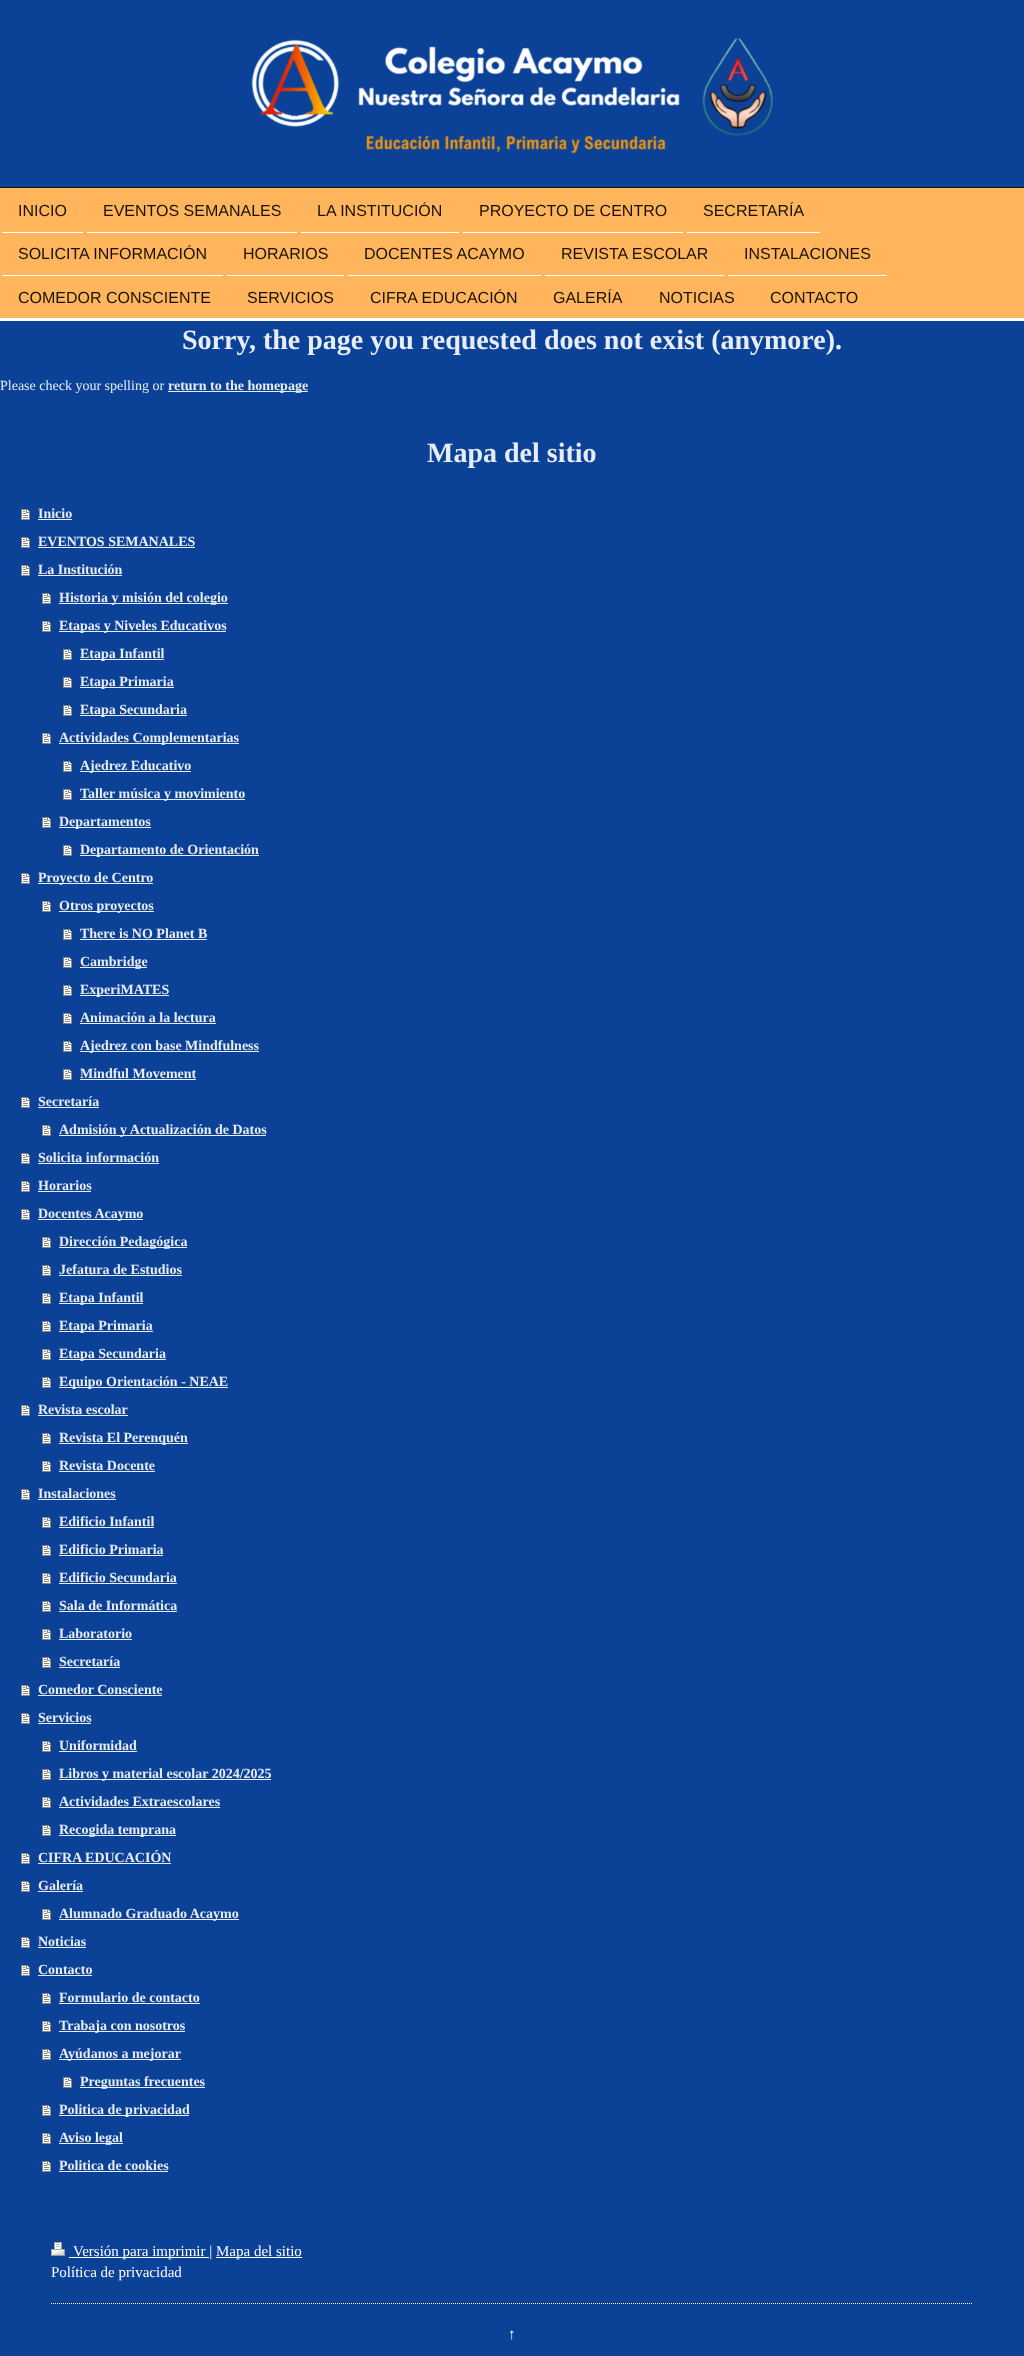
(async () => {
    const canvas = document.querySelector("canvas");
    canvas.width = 1024;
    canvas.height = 2356;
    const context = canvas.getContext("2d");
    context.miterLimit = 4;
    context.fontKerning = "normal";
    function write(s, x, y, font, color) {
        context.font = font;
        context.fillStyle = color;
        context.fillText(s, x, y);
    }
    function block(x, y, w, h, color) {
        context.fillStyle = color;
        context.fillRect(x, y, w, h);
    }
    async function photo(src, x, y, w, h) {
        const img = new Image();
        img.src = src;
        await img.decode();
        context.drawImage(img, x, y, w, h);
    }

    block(0, 0, 1024, 2356, "rgb(11, 66, 152)");
    block(0, 188, 1024, 130, "rgb(255, 181, 92)");
    await photo("media/1.png", 251, 38, 522, 116);
    block(0, 187, 1024, 1, "rgb(26, 18, 9)");
    block(0, 318, 1024, 3, "rgb(255, 255, 255)");
    block(2, 232, 81, 1, "rgb(255, 255, 255)");
    write("INICIO", 18, 216, "16px Liberation Sans", "rgb(26, 18, 9)");
    block(87, 232, 210, 1, "rgb(255, 255, 255)");
    write("EVENTOS SEMANALES", 103, 216, "16px Liberation Sans", "rgb(26, 18, 9)");
    block(301, 232, 158, 1, "rgb(255, 255, 255)");
    write("LA INSTITUCIÓN", 317, 216, "16px Liberation Sans", "rgb(26, 18, 9)");
    block(463, 232, 220, 1, "rgb(255, 255, 255)");
    write("PROYECTO DE CENTRO", 479, 216, "16px Liberation Sans", "rgb(26, 18, 9)");
    block(687, 232, 133, 1, "rgb(255, 255, 255)");
    write("SECRETARÍA", 703, 216, "16px Liberation Sans", "rgb(26, 18, 9)");
    block(2, 275, 221, 1, "rgb(255, 255, 255)");
    write("SOLICITA INFORMACIÓN", 18, 259, "16px Liberation Sans", "rgb(26, 18, 9)");
    block(227, 275, 117, 1, "rgb(255, 255, 255)");
    write("HORARIOS", 243, 259, "16px Liberation Sans", "rgb(26, 18, 9)");
    block(348, 275, 193, 1, "rgb(255, 255, 255)");
    write("DOCENTES ACAYMO", 364, 259, "16px Liberation Sans", "rgb(26, 18, 9)");
    block(545, 275, 179, 1, "rgb(255, 255, 255)");
    write("REVISTA ESCOLAR", 561, 259, "16px Liberation Sans", "rgb(26, 18, 9)");
    block(728, 275, 159, 1, "rgb(255, 255, 255)");
    write("INSTALACIONES", 744, 259, "16px Liberation Sans", "rgb(26, 18, 9)");
    write("COMEDOR CONSCIENTE", 18, 303, "16px Liberation Sans", "rgb(26, 18, 9)");
    write("SERVICIOS", 247, 303, "16px Liberation Sans", "rgb(26, 18, 9)");
    write("CIFRA EDUCACIÓN", 370, 303, "16px Liberation Sans", "rgb(26, 18, 9)");
    write("GALERÍA", 553, 303, "16px Liberation Sans", "rgb(26, 18, 9)");
    write("NOTICIAS", 659, 303, "16px Liberation Sans", "rgb(26, 18, 9)");
    write("CONTACTO", 770, 303, "16px Liberation Sans", "rgb(26, 18, 9)");
    write("Sorry, the page you requested does not exist (anymore).", 182, 349, "bold 28px Liberation Serif", "rgb(231, 236, 245)");
    write("Please check your spelling or", 0, 390, "14px Liberation Serif", "rgb(231, 236, 245)");
    block(168, 391, 140, 1, "rgb(231, 236, 245)");
    write("return to the homepage", 168, 390, "bold 14px Liberation Serif", "rgb(231, 236, 245)");
    write("Mapa del sitio", 427, 462, "bold 28px Liberation Serif", "rgb(231, 236, 245)");
    await photo("media/2.png", 21, 509, 9, 11);
    write("Inicio", 38, 518, "bold 14px Liberation Serif", "rgb(231, 236, 245)");
    block(38, 519, 34, 1, "rgb(231, 236, 245)");
    await photo("media/2.png", 21, 537, 9, 11);
    write("EVENTOS SEMANALES", 38, 546, "bold 14px Liberation Serif", "rgb(231, 236, 245)");
    block(38, 547, 157, 1, "rgb(231, 236, 245)");
    await photo("media/2.png", 21, 565, 9, 11);
    write("La Institución", 38, 574, "bold 14px Liberation Serif", "rgb(231, 236, 245)");
    block(38, 575, 84, 1, "rgb(231, 236, 245)");
    await photo("media/2.png", 42, 593, 9, 11);
    block(59, 603, 169, 1, "rgb(231, 236, 245)");
    write("Historia y misión del colegio", 59, 602, "bold 14px Liberation Serif", "rgb(231, 236, 245)");
    await photo("media/2.png", 42, 621, 9, 11);
    block(59, 631, 167, 1, "rgb(231, 236, 245)");
    write("Etapas y Niveles Educativos", 59, 630, "bold 14px Liberation Serif", "rgb(231, 236, 245)");
    await photo("media/2.png", 63, 649, 9, 11);
    block(80, 659, 84, 1, "rgb(231, 236, 245)");
    write("Etapa Infantil", 80, 658, "bold 14px Liberation Serif", "rgb(231, 236, 245)");
    await photo("media/2.png", 63, 677, 9, 11);
    block(80, 687, 94, 1, "rgb(231, 236, 245)");
    write("Etapa Primaria", 80, 686, "bold 14px Liberation Serif", "rgb(231, 236, 245)");
    await photo("media/2.png", 63, 705, 9, 11);
    block(80, 715, 107, 1, "rgb(231, 236, 245)");
    write("Etapa Secundaria", 80, 714, "bold 14px Liberation Serif", "rgb(231, 236, 245)");
    await photo("media/2.png", 42, 733, 9, 11);
    block(59, 743, 180, 1, "rgb(231, 236, 245)");
    write("Actividades Complementarias", 59, 742, "bold 14px Liberation Serif", "rgb(231, 236, 245)");
    await photo("media/2.png", 63, 761, 9, 11);
    block(80, 771, 111, 1, "rgb(231, 236, 245)");
    write("Ajedrez Educativo", 80, 770, "bold 14px Liberation Serif", "rgb(231, 236, 245)");
    await photo("media/2.png", 63, 789, 9, 11);
    block(80, 799, 165, 1, "rgb(231, 236, 245)");
    write("Taller música y movimiento", 80, 798, "bold 14px Liberation Serif", "rgb(231, 236, 245)");
    await photo("media/2.png", 42, 817, 9, 11);
    block(59, 827, 92, 1, "rgb(231, 236, 245)");
    write("Departamentos", 59, 826, "bold 14px Liberation Serif", "rgb(231, 236, 245)");
    await photo("media/2.png", 63, 845, 9, 11);
    block(80, 855, 179, 1, "rgb(231, 236, 245)");
    write("Departamento de Orientación", 80, 854, "bold 14px Liberation Serif", "rgb(231, 236, 245)");
    await photo("media/2.png", 21, 873, 9, 11);
    block(38, 883, 115, 1, "rgb(231, 236, 245)");
    write("Proyecto de Centro", 38, 882, "bold 14px Liberation Serif", "rgb(231, 236, 245)");
    await photo("media/2.png", 42, 901, 9, 11);
    block(59, 911, 95, 1, "rgb(231, 236, 245)");
    write("Otros proyectos", 59, 910, "bold 14px Liberation Serif", "rgb(231, 236, 245)");
    await photo("media/2.png", 63, 929, 9, 11);
    write("There is NO Planet B", 80, 938, "bold 14px Liberation Serif", "rgb(231, 236, 245)");
    block(80, 939, 127, 1, "rgb(231, 236, 245)");
    await photo("media/2.png", 63, 957, 9, 11);
    block(80, 967, 67, 1, "rgb(231, 236, 245)");
    write("Cambridge", 80, 966, "bold 14px Liberation Serif", "rgb(231, 236, 245)");
    await photo("media/2.png", 63, 985, 9, 11);
    block(80, 995, 89, 1, "rgb(231, 236, 245)");
    write("ExperiMATES", 80, 994, "bold 14px Liberation Serif", "rgb(231, 236, 245)");
    await photo("media/2.png", 63, 1013, 9, 11);
    write("Animación a la lectura", 80, 1022, "bold 14px Liberation Serif", "rgb(231, 236, 245)");
    block(80, 1023, 136, 1, "rgb(231, 236, 245)");
    await photo("media/2.png", 63, 1041, 9, 11);
    block(80, 1051, 179, 1, "rgb(231, 236, 245)");
    write("Ajedrez con base Mindfulness", 80, 1050, "bold 14px Liberation Serif", "rgb(231, 236, 245)");
    await photo("media/2.png", 63, 1069, 9, 11);
    write("Mindful Movement", 80, 1078, "bold 14px Liberation Serif", "rgb(231, 236, 245)");
    block(80, 1079, 116, 1, "rgb(231, 236, 245)");
    await photo("media/2.png", 21, 1097, 9, 11);
    write("Secretaría", 38, 1106, "bold 14px Liberation Serif", "rgb(231, 236, 245)");
    block(38, 1107, 61, 1, "rgb(231, 236, 245)");
    await photo("media/2.png", 42, 1125, 9, 11);
    block(59, 1135, 207, 1, "rgb(231, 236, 245)");
    write("Admisión y Actualización de Datos", 59, 1134, "bold 14px Liberation Serif", "rgb(231, 236, 245)");
    await photo("media/2.png", 21, 1153, 9, 11);
    write("Solicita información", 38, 1162, "bold 14px Liberation Serif", "rgb(231, 236, 245)");
    block(38, 1163, 121, 1, "rgb(231, 236, 245)");
    await photo("media/2.png", 21, 1181, 9, 11);
    write("Horarios", 38, 1190, "bold 14px Liberation Serif", "rgb(231, 236, 245)");
    block(38, 1191, 53, 1, "rgb(231, 236, 245)");
    await photo("media/2.png", 21, 1209, 9, 11);
    block(38, 1219, 105, 1, "rgb(231, 236, 245)");
    write("Docentes Acaymo", 38, 1218, "bold 14px Liberation Serif", "rgb(231, 236, 245)");
    await photo("media/2.png", 42, 1237, 9, 11);
    block(59, 1247, 128, 1, "rgb(231, 236, 245)");
    write("Dirección Pedagógica", 59, 1246, "bold 14px Liberation Serif", "rgb(231, 236, 245)");
    await photo("media/2.png", 42, 1265, 9, 11);
    write("Jefatura de Estudios", 59, 1274, "bold 14px Liberation Serif", "rgb(231, 236, 245)");
    block(59, 1275, 123, 1, "rgb(231, 236, 245)");
    await photo("media/2.png", 42, 1293, 9, 11);
    block(59, 1303, 84, 1, "rgb(231, 236, 245)");
    write("Etapa Infantil", 59, 1302, "bold 14px Liberation Serif", "rgb(231, 236, 245)");
    await photo("media/2.png", 42, 1321, 9, 11);
    block(59, 1331, 94, 1, "rgb(231, 236, 245)");
    write("Etapa Primaria", 59, 1330, "bold 14px Liberation Serif", "rgb(231, 236, 245)");
    await photo("media/2.png", 42, 1349, 9, 11);
    block(59, 1359, 107, 1, "rgb(231, 236, 245)");
    write("Etapa Secundaria", 59, 1358, "bold 14px Liberation Serif", "rgb(231, 236, 245)");
    await photo("media/2.png", 42, 1377, 9, 11);
    block(59, 1387, 169, 1, "rgb(231, 236, 245)");
    write("Equipo Orientación - NEAE", 59, 1386, "bold 14px Liberation Serif", "rgb(231, 236, 245)");
    await photo("media/2.png", 21, 1405, 9, 11);
    write("Revista escolar", 38, 1414, "bold 14px Liberation Serif", "rgb(231, 236, 245)");
    block(38, 1415, 90, 1, "rgb(231, 236, 245)");
    await photo("media/2.png", 42, 1433, 9, 11);
    block(59, 1443, 129, 1, "rgb(231, 236, 245)");
    write("Revista El Perenquén", 59, 1442, "bold 14px Liberation Serif", "rgb(231, 236, 245)");
    await photo("media/2.png", 42, 1461, 9, 11);
    write("Revista Docente", 59, 1470, "bold 14px Liberation Serif", "rgb(231, 236, 245)");
    block(59, 1471, 96, 1, "rgb(231, 236, 245)");
    await photo("media/2.png", 21, 1489, 9, 11);
    write("Instalaciones", 38, 1498, "bold 14px Liberation Serif", "rgb(231, 236, 245)");
    block(38, 1499, 78, 1, "rgb(231, 236, 245)");
    await photo("media/2.png", 42, 1517, 9, 11);
    write("Edificio Infantil", 59, 1526, "bold 14px Liberation Serif", "rgb(231, 236, 245)");
    block(59, 1527, 95, 1, "rgb(231, 236, 245)");
    await photo("media/2.png", 42, 1545, 9, 11);
    write("Edificio Primaria", 59, 1554, "bold 14px Liberation Serif", "rgb(231, 236, 245)");
    block(59, 1555, 104, 1, "rgb(231, 236, 245)");
    await photo("media/2.png", 42, 1573, 9, 11);
    write("Edificio Secundaria", 59, 1582, "bold 14px Liberation Serif", "rgb(231, 236, 245)");
    block(59, 1583, 118, 1, "rgb(231, 236, 245)");
    await photo("media/2.png", 42, 1601, 9, 11);
    write("Sala de Informática", 59, 1610, "bold 14px Liberation Serif", "rgb(231, 236, 245)");
    block(59, 1611, 118, 1, "rgb(231, 236, 245)");
    await photo("media/2.png", 42, 1629, 9, 11);
    write("Laboratorio", 59, 1638, "bold 14px Liberation Serif", "rgb(231, 236, 245)");
    block(59, 1639, 73, 1, "rgb(231, 236, 245)");
    await photo("media/2.png", 42, 1657, 9, 11);
    write("Secretaría", 59, 1666, "bold 14px Liberation Serif", "rgb(231, 236, 245)");
    block(59, 1667, 61, 1, "rgb(231, 236, 245)");
    await photo("media/2.png", 21, 1685, 9, 11);
    write("Comedor Consciente", 38, 1694, "bold 14px Liberation Serif", "rgb(231, 236, 245)");
    block(38, 1695, 124, 1, "rgb(231, 236, 245)");
    await photo("media/2.png", 21, 1713, 9, 11);
    write("Servicios", 38, 1722, "bold 14px Liberation Serif", "rgb(231, 236, 245)");
    block(38, 1723, 53, 1, "rgb(231, 236, 245)");
    await photo("media/2.png", 42, 1741, 9, 11);
    write("Uniformidad", 59, 1750, "bold 14px Liberation Serif", "rgb(231, 236, 245)");
    block(59, 1751, 78, 1, "rgb(231, 236, 245)");
    await photo("media/2.png", 42, 1769, 9, 11);
    block(59, 1779, 212, 1, "rgb(231, 236, 245)");
    write("Libros y material escolar 2024/2025", 59, 1778, "bold 14px Liberation Serif", "rgb(231, 236, 245)");
    await photo("media/2.png", 42, 1797, 9, 11);
    write("Actividades Extraescolares", 59, 1806, "bold 14px Liberation Serif", "rgb(231, 236, 245)");
    block(59, 1807, 161, 1, "rgb(231, 236, 245)");
    await photo("media/2.png", 42, 1825, 9, 11);
    block(59, 1835, 117, 1, "rgb(231, 236, 245)");
    write("Recogida temprana", 59, 1834, "bold 14px Liberation Serif", "rgb(231, 236, 245)");
    await photo("media/2.png", 21, 1853, 9, 11);
    write("CIFRA EDUCACIÓN", 38, 1862, "bold 14px Liberation Serif", "rgb(231, 236, 245)");
    block(38, 1863, 133, 1, "rgb(231, 236, 245)");
    await photo("media/2.png", 21, 1881, 9, 11);
    write("Galería", 38, 1890, "bold 14px Liberation Serif", "rgb(231, 236, 245)");
    block(38, 1891, 45, 1, "rgb(231, 236, 245)");
    await photo("media/2.png", 42, 1909, 9, 11);
    block(59, 1919, 180, 1, "rgb(231, 236, 245)");
    write("Alumnado Graduado Acaymo", 59, 1918, "bold 14px Liberation Serif", "rgb(231, 236, 245)");
    await photo("media/2.png", 21, 1937, 9, 11);
    write("Noticias", 38, 1946, "bold 14px Liberation Serif", "rgb(231, 236, 245)");
    block(38, 1947, 48, 1, "rgb(231, 236, 245)");
    await photo("media/2.png", 21, 1965, 9, 11);
    write("Contacto", 38, 1974, "bold 14px Liberation Serif", "rgb(231, 236, 245)");
    block(38, 1975, 54, 1, "rgb(231, 236, 245)");
    await photo("media/2.png", 42, 1993, 9, 11);
    write("Formulario de contacto", 59, 2002, "bold 14px Liberation Serif", "rgb(231, 236, 245)");
    block(59, 2003, 141, 1, "rgb(231, 236, 245)");
    await photo("media/2.png", 42, 2021, 9, 11);
    block(59, 2031, 126, 1, "rgb(231, 236, 245)");
    write("Trabaja con nosotros", 59, 2030, "bold 14px Liberation Serif", "rgb(231, 236, 245)");
    await photo("media/2.png", 42, 2049, 9, 11);
    block(59, 2059, 122, 1, "rgb(231, 236, 245)");
    write("Ayúdanos a mejorar", 59, 2058, "bold 14px Liberation Serif", "rgb(231, 236, 245)");
    await photo("media/2.png", 63, 2077, 9, 11);
    block(80, 2087, 125, 1, "rgb(231, 236, 245)");
    write("Preguntas frecuentes", 80, 2086, "bold 14px Liberation Serif", "rgb(231, 236, 245)");
    await photo("media/2.png", 42, 2105, 9, 11);
    block(59, 2115, 130, 1, "rgb(231, 236, 245)");
    write("Politica de privacidad", 59, 2114, "bold 14px Liberation Serif", "rgb(231, 236, 245)");
    await photo("media/2.png", 42, 2133, 9, 11);
    block(59, 2143, 64, 1, "rgb(231, 236, 245)");
    write("Aviso legal", 59, 2142, "bold 14px Liberation Serif", "rgb(231, 236, 245)");
    await photo("media/2.png", 42, 2161, 9, 11);
    write("Politica de cookies", 59, 2170, "bold 14px Liberation Serif", "rgb(231, 236, 245)");
    block(59, 2171, 109, 1, "rgb(231, 236, 245)");
    await photo("media/3.png", 51, 2242, 14, 14);
    block(69, 2257, 140, 1, "rgb(255, 255, 255)");
    write("Versión para imprimir |", 73, 2256, "15px Liberation Serif", "rgb(255, 255, 255)");
    block(216, 2257, 86, 1, "rgb(255, 255, 255)");
    write("Mapa del sitio", 216, 2256, "15px Liberation Serif", "rgb(255, 255, 255)");
    write("Política de privacidad", 51, 2277, "15px Liberation Serif", "rgb(255, 255, 255)");
    context.beginPath();
    context.moveTo(51, 2303.5);
    context.lineTo(973, 2303.5);
    context.strokeStyle = "rgb(255, 255, 255)";
    context.setLineDash([1, 1]);
    context.stroke();
    write("↑", 508, 2339, "15px Liberation Serif", "rgb(255, 255, 255)");
})();
